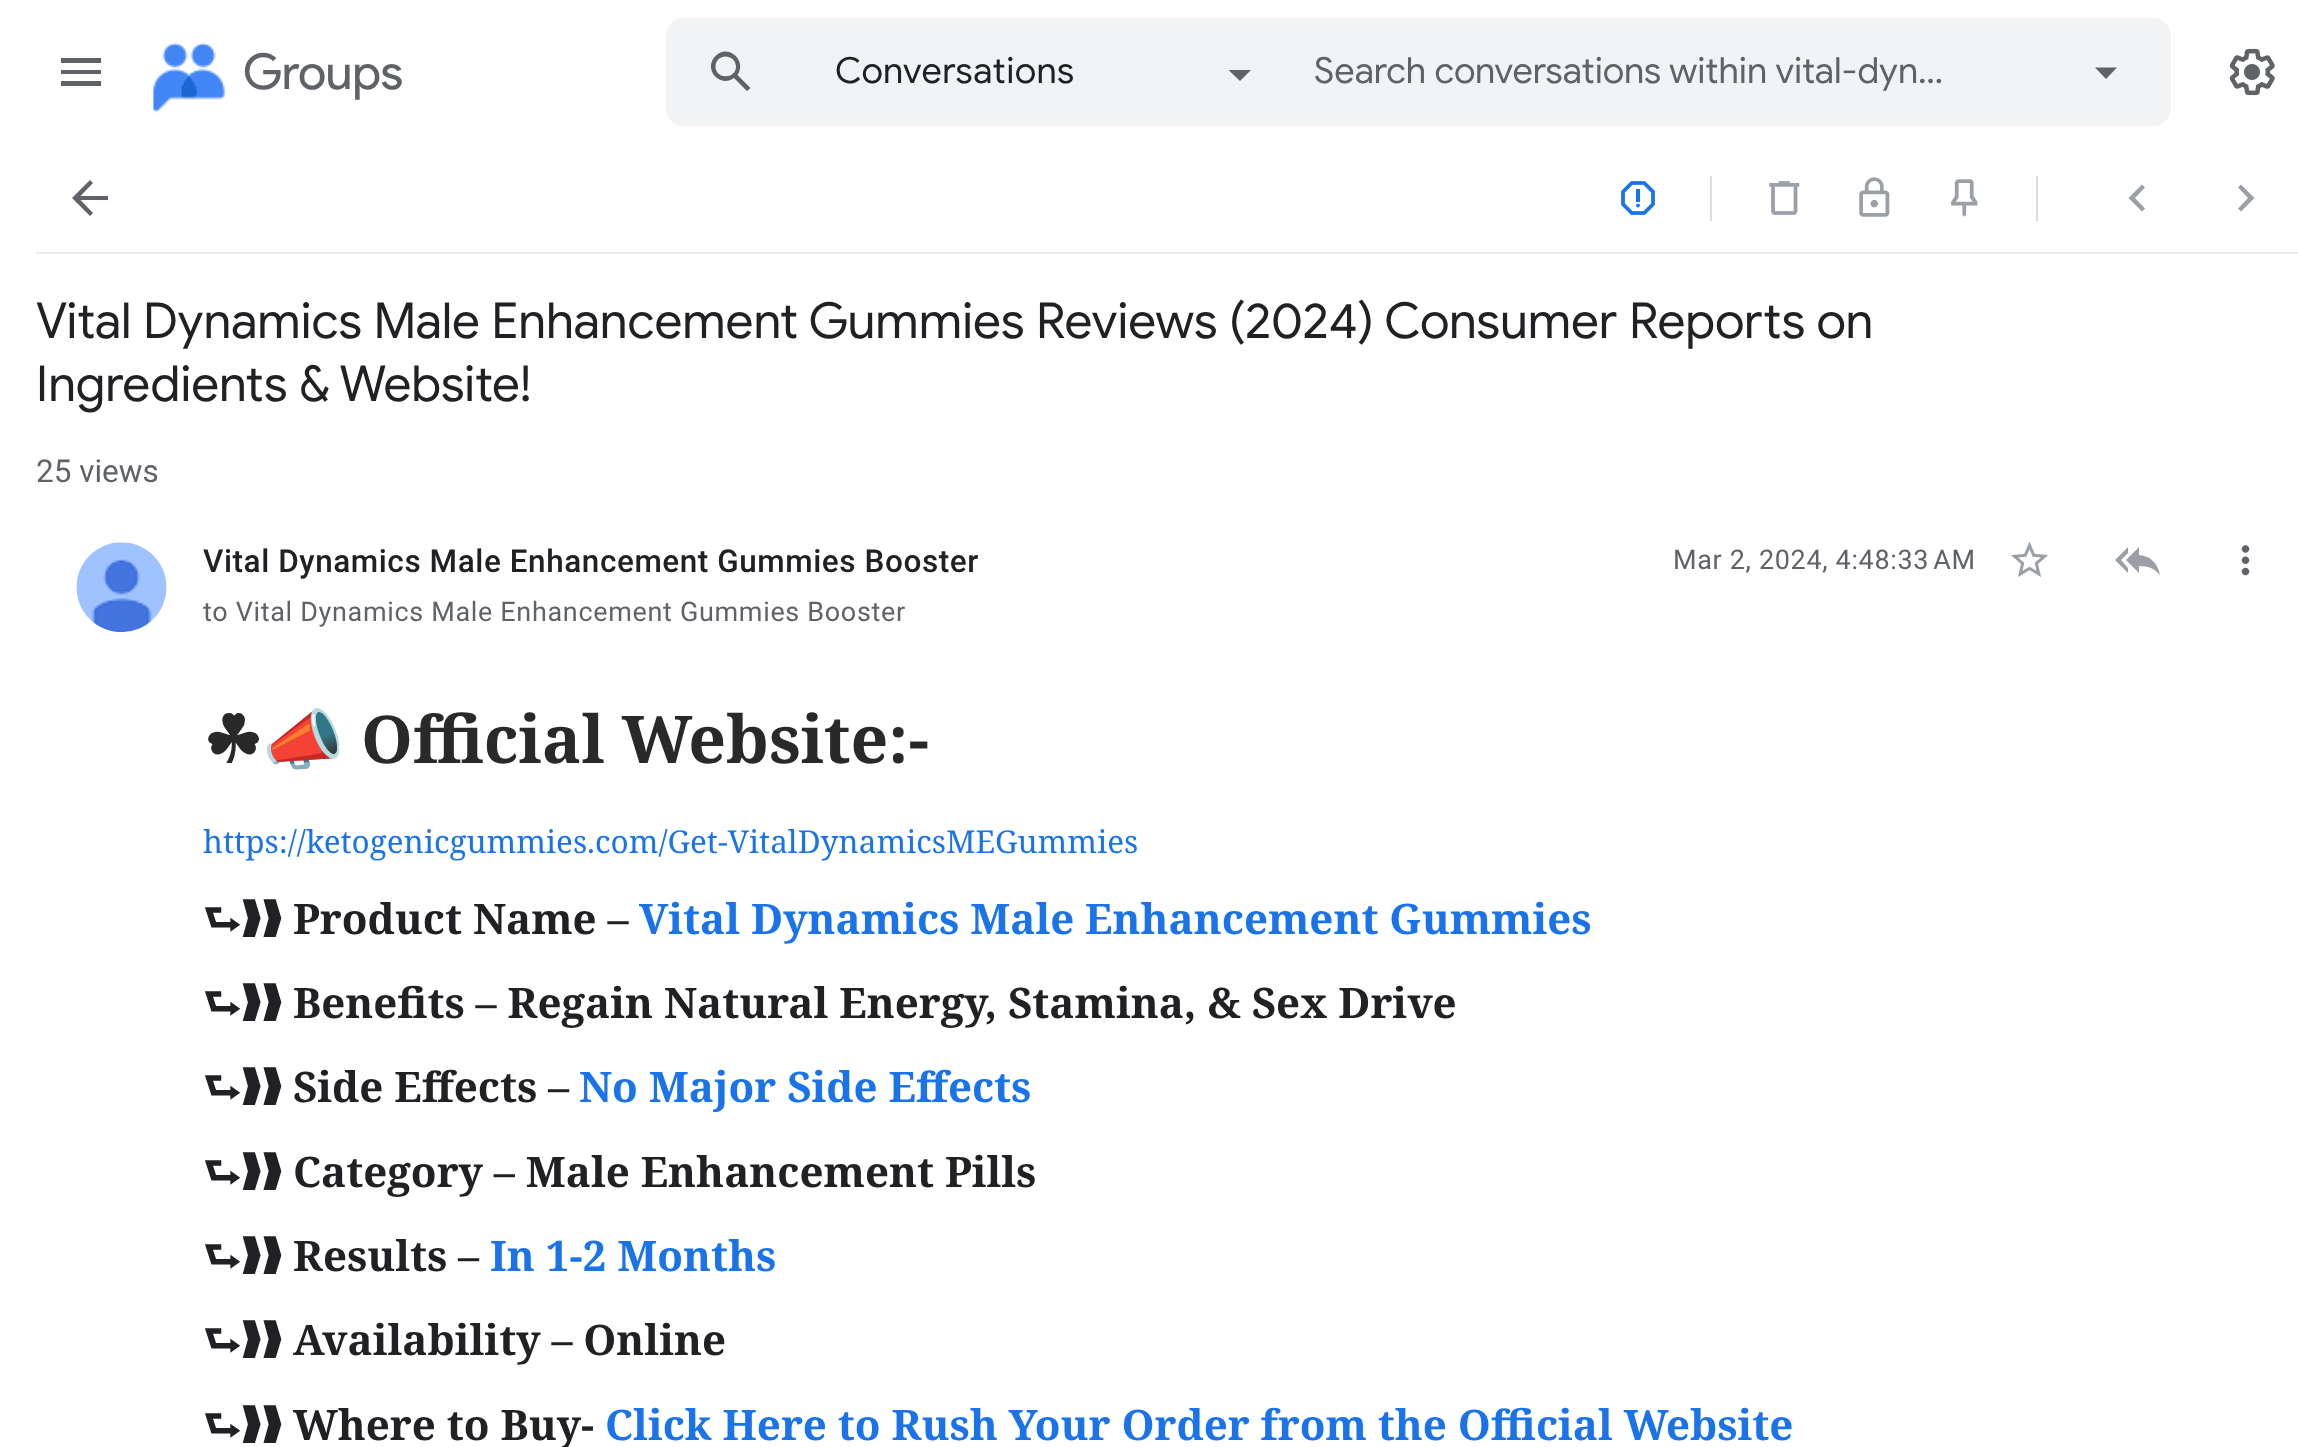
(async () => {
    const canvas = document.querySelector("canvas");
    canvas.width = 2298;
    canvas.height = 1447;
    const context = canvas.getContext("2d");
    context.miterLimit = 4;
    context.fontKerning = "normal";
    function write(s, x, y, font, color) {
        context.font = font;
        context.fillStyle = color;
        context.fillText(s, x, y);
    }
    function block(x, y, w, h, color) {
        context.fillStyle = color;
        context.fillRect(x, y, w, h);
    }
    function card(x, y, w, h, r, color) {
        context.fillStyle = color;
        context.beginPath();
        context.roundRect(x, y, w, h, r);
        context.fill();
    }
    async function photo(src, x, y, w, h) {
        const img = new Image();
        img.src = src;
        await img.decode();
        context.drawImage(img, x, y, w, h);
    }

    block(0, 0, 2298, 1447, "rgb(255, 255, 255)");
    context.fillStyle = "rgb(95, 99, 104)";
    context.beginPath();
    context.moveTo(61, 86);
    context.lineTo(101, 86);
    context.lineTo(101, 81);
    context.lineTo(61, 81);
    context.closePath();
    context.moveTo(61, 74);
    context.lineTo(101, 74);
    context.lineTo(101, 70);
    context.lineTo(61, 70);
    context.closePath();
    context.moveTo(61, 58);
    context.lineTo(61, 63);
    context.lineTo(101, 63);
    context.lineTo(101, 58);
    context.closePath();
    context.fill();
    await photo("media/1.png", 153, 42, 73, 71);
    write("Groups", 243, 89, "49.5px Product Sans", "rgb(95, 99, 104)");
    card(666, 18, 1505, 108, 18, "rgb(241, 243, 244)");
    context.fillStyle = "rgb(95, 99, 104)";
    context.beginPath();
    context.moveTo(750.5, 88);
    context.lineTo(737.5, 75);
    context.bezierCurveTo(747.5, 60.5, 728, 43, 715.5, 56);
    context.bezierCurveTo(702.5, 69, 720, 88.5, 734, 78);
    context.lineTo(747, 91);
    context.closePath();
    context.moveTo(715.5, 66.5);
    context.bezierCurveTo(715.5, 53, 735.5, 53, 736, 66.5);
    context.bezierCurveTo(736, 79.5, 715.5, 79.5, 715.5, 66.5);
    context.closePath();
    context.fill();
    context.letterSpacing = "0.5px";
    write("Conversations", 835, 83, "36px Google Sans", "rgb(32, 33, 36)");
    context.fillStyle = "rgb(95, 99, 104)";
    context.beginPath();
    context.moveTo(1228.5, 70);
    context.lineTo(1251, 70);
    context.lineTo(1240, 81);
    context.closePath();
    context.fill();
    context.letterSpacing = "0px";
    write("Search conversations within vital-dyn…", 1314, 83, "36px Google Sans", "rgb(95, 99, 104)");
    context.beginPath();
    context.moveTo(2095, 67.5);
    context.lineTo(2106, 79);
    context.lineTo(2117, 67.5);
    context.closePath();
    context.fill();
    await photo("media/2.png", 2229, 48, 46, 48);
    block(36, 252, 2262, 2, "rgb(232, 234, 237)");
    context.fillStyle = "rgb(95, 99, 104)";
    context.beginPath();
    context.moveTo(108, 196);
    context.lineTo(108, 200);
    context.lineTo(80.5, 200);
    context.lineTo(93, 213);
    context.lineTo(90, 216);
    context.lineTo(72, 198);
    context.lineTo(90, 180);
    context.lineTo(93, 183);
    context.lineTo(80.5, 196);
    context.closePath();
    context.fill();
    await photo("media/3.png", 1621, 181, 34, 34);
    block(1710, 176, 2, 45, "rgb(221, 221, 221)");
    await photo("media/4.png", 1769, 181, 31, 34);
    await photo("media/5.png", 1859, 177, 31, 40);
    await photo("media/6.png", 1951, 179, 27, 38);
    block(2036, 176, 2, 45, "rgb(221, 221, 221)");
    context.fillStyle = "rgb(154, 160, 166)";
    context.beginPath();
    context.moveTo(2145, 187.5);
    context.lineTo(2135, 198);
    context.lineTo(2145, 208.5);
    context.lineTo(2142, 211.5);
    context.lineTo(2128.5, 198);
    context.lineTo(2142, 184.5);
    context.closePath();
    context.fill();
    context.beginPath();
    context.moveTo(2241, 184.5);
    context.lineTo(2254.5, 198);
    context.lineTo(2241, 211.5);
    context.lineTo(2238, 208.5);
    context.lineTo(2248, 198);
    context.lineTo(2238, 187.5);
    context.closePath();
    context.fill();
    write("Vital Dynamics Male Enhancement Gummies Reviews (2024) Consumer Reports on", 36, 338, "49.5px Google Sans", "rgb(32, 33, 36)");
    write("Ingredients & Website!", 36, 401, "49.5px Google Sans", "rgb(32, 33, 36)");
    write("25 views", 36, 482, "31.5px Roboto", "rgb(95, 99, 104)");
    await photo("media/7.png", 76, 542, 91, 91);
    context.letterSpacing = "0.55px";
    write("Vital Dynamics Male Enhancement Gummies Booster", 203, 572, "500 31.5px Roboto", "rgb(32, 33, 36)");
    context.letterSpacing = "0.67px";
    write("Mar 2, 2024, 4:48:33 AM", 1673, 569, "27px Roboto", "rgb(95, 99, 104)");
    await photo("media/8.png", 2011, 541, 37, 36);
    context.fillStyle = "rgb(154, 160, 166)";
    context.beginPath();
    context.moveTo(2139, 555);
    context.bezierCurveTo(2151, 556, 2158, 564, 2160, 575);
    context.bezierCurveTo(2155, 569, 2149, 566, 2139, 566);
    context.lineTo(2139, 573);
    context.lineTo(2126, 560);
    context.lineTo(2139, 547);
    context.closePath();
    context.moveTo(2128, 553);
    context.lineTo(2121, 560);
    context.lineTo(2128, 568);
    context.lineTo(2128, 573);
    context.lineTo(2115, 560);
    context.lineTo(2128, 547);
    context.closePath();
    context.fill();
    await photo("media/9.png", 2241, 545, 9, 31);
    write("to Vital Dynamics Male Enhancement Gummies Booster", 203, 621, "27px Roboto", "rgb(95, 99, 104)");
    context.letterSpacing = "0px";
    write("☘", 203, 763, "bold 66px DejaVu Sans", "rgb(41, 41, 41)");
    write("📣", 262, 763, "bold 66px Noto Color Emoji", "rgb(41, 41, 41)");
    write("Official Website:-", 361, 763, "bold 66px Noto Serif", "rgb(41, 41, 41)");
    write("https://ketogenicgummies.com/Get-VitalDynamicsMEGummies", 203, 853, "31.5px Noto Serif", "rgb(26, 115, 232)");
    write("⮑❱❱", 203, 934, "bold 42px 'Noto Sans Symbols 2'", "rgb(32, 33, 36)");
    write("Product Name –", 293, 934, "bold 42px Noto Serif", "rgb(32, 33, 36)");
    write("Vital Dynamics Male Enhancement Gummies", 639, 934, "bold 42px Noto Serif", "rgb(26, 115, 232)");
    write("⮑❱❱", 203, 1018, "bold 42px 'Noto Sans Symbols 2'", "rgb(32, 33, 36)");
    write("Benefits – Regain Natural Energy, Stamina, & Sex Drive", 293, 1018, "bold 42px Noto Serif", "rgb(32, 33, 36)");
    write("⮑❱❱", 203, 1102, "bold 42px 'Noto Sans Symbols 2'", "rgb(32, 33, 36)");
    write("Side Effects –", 293, 1102, "bold 42px Noto Serif", "rgb(32, 33, 36)");
    write("No Major Side Effects", 579, 1102, "bold 42px Noto Serif", "rgb(26, 115, 232)");
    write("⮑❱❱", 203, 1187, "bold 42px 'Noto Sans Symbols 2'", "rgb(32, 33, 36)");
    write("Category – Male Enhancement Pills", 293, 1187, "bold 42px Noto Serif", "rgb(32, 33, 36)");
    write("⮑❱❱", 203, 1271, "bold 42px 'Noto Sans Symbols 2'", "rgb(32, 33, 36)");
    write("Results –", 293, 1271, "bold 42px Noto Serif", "rgb(32, 33, 36)");
    write("In 1-2 Months", 490, 1271, "bold 42px Noto Serif", "rgb(26, 115, 232)");
    write("⮑❱❱", 203, 1355, "bold 42px 'Noto Sans Symbols 2'", "rgb(32, 33, 36)");
    write("Availability – Online", 293, 1355, "bold 42px Noto Serif", "rgb(32, 33, 36)");
    write("⮑❱❱", 203, 1440, "bold 42px 'Noto Sans Symbols 2'", "rgb(32, 33, 36)");
    write("Where to Buy-", 293, 1440, "bold 42px Noto Serif", "rgb(32, 33, 36)");
    write("Click Here to Rush Your Order from the Official Website", 605, 1440, "bold 42px Noto Serif", "rgb(26, 115, 232)");
})();
